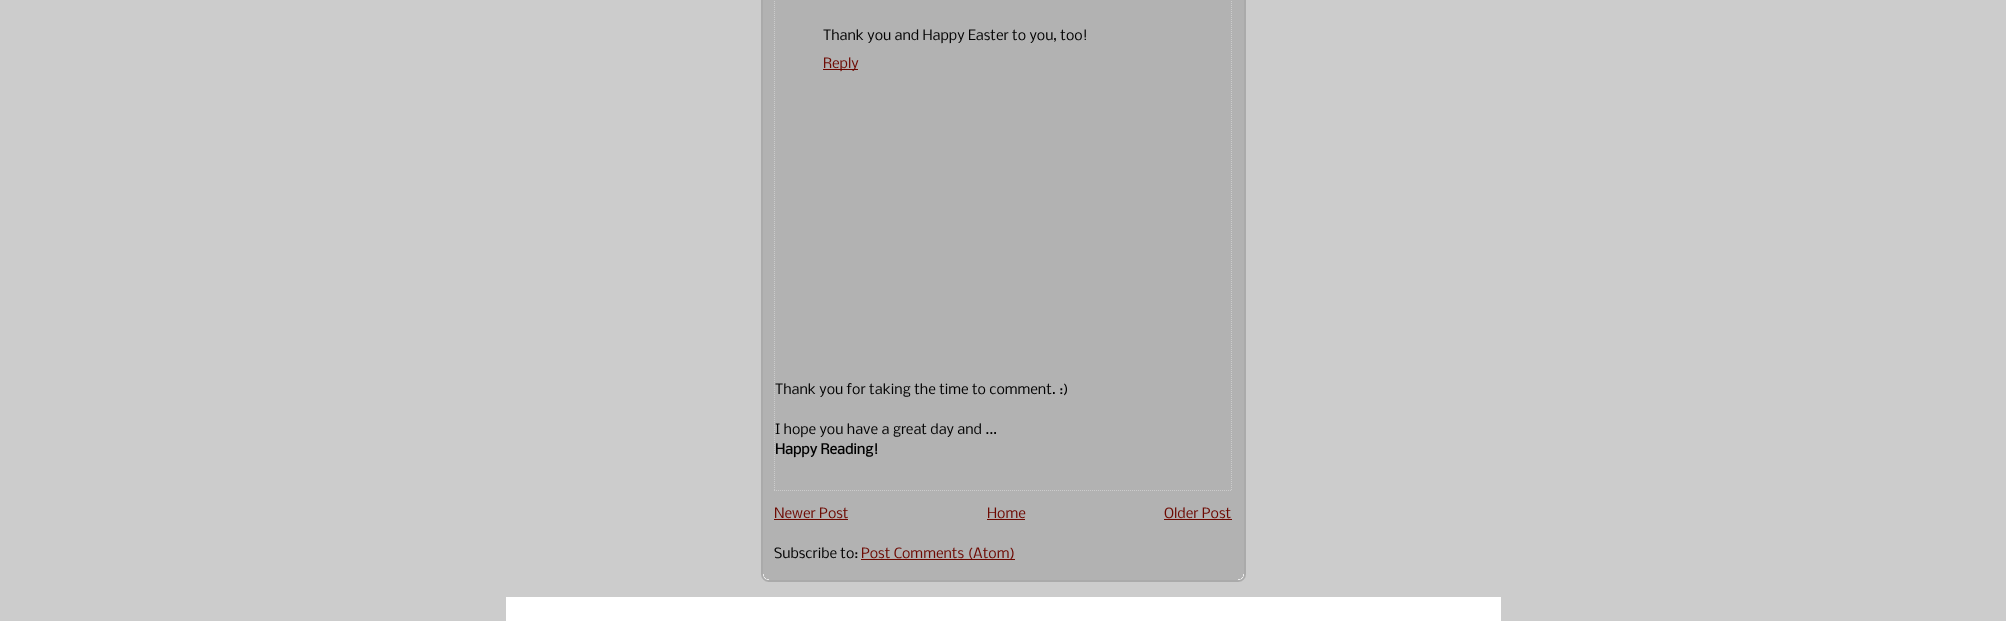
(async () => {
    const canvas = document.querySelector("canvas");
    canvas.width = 2006;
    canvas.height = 621;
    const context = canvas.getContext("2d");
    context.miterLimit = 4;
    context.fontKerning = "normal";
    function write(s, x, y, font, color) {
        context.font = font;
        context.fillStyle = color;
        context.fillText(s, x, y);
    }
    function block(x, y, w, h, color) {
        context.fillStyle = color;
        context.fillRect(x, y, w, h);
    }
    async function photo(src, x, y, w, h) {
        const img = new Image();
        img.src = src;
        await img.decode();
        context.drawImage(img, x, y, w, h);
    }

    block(0, 0, 2006, 621, "rgb(204, 204, 204)");
    block(763, 0, 481, 580, "rgb(178, 178, 178)");
    await photo("media/1.png", 761, 532, 485, 50);
    await photo("media/2.png", 761, 0, 485, 532);
    context.beginPath();
    context.moveTo(1231.5, -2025);
    context.lineTo(1231.5, 491);
    context.strokeStyle = "rgb(204, 204, 204)";
    context.setLineDash([1, 1]);
    context.stroke();
    context.beginPath();
    context.moveTo(774, 490.5);
    context.lineTo(1232, 490.5);
    context.stroke();
    context.beginPath();
    context.moveTo(774.5, -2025);
    context.lineTo(774.5, 491);
    context.stroke();
    write("Thank you and Happy Easter to you, too!", 823, 40, "13.5px Nobile", "rgb(0, 0, 0)");
    block(823, 69, 35, 1, "rgb(109, 8, 0)");
    write("Reply", 823, 68, "13.5px Nobile", "rgb(109, 8, 0)");
    write("Thank you for taking the time to comment. :)", 775, 394, "13.5px Nobile", "rgb(0, 0, 0)");
    write("I hope you have a great day and ...", 775, 434, "13.5px Nobile", "rgb(0, 0, 0)");
    write("Happy Reading!", 775, 454, "bold 13.5px Nobile", "rgb(0, 0, 0)");
    write("Newer Post", 774, 518, "13.5px Nobile", "rgb(109, 8, 0)");
    block(774, 519, 74, 1, "rgb(109, 8, 0)");
    write("Home", 987, 518, "13.5px Nobile", "rgb(109, 8, 0)");
    block(987, 519, 38, 1, "rgb(109, 8, 0)");
    write("Older Post", 1164, 518, "13.5px Nobile", "rgb(109, 8, 0)");
    block(1164, 519, 68, 1, "rgb(109, 8, 0)");
    write("Subscribe to:", 774, 558, "13.5px Nobile", "rgb(0, 0, 0)");
    block(861, 559, 154, 1, "rgb(109, 8, 0)");
    write("Post Comments (Atom)", 861, 558, "13.5px Nobile", "rgb(109, 8, 0)");
    block(506, 597, 995, 24, "rgb(255, 255, 255)");
})();
